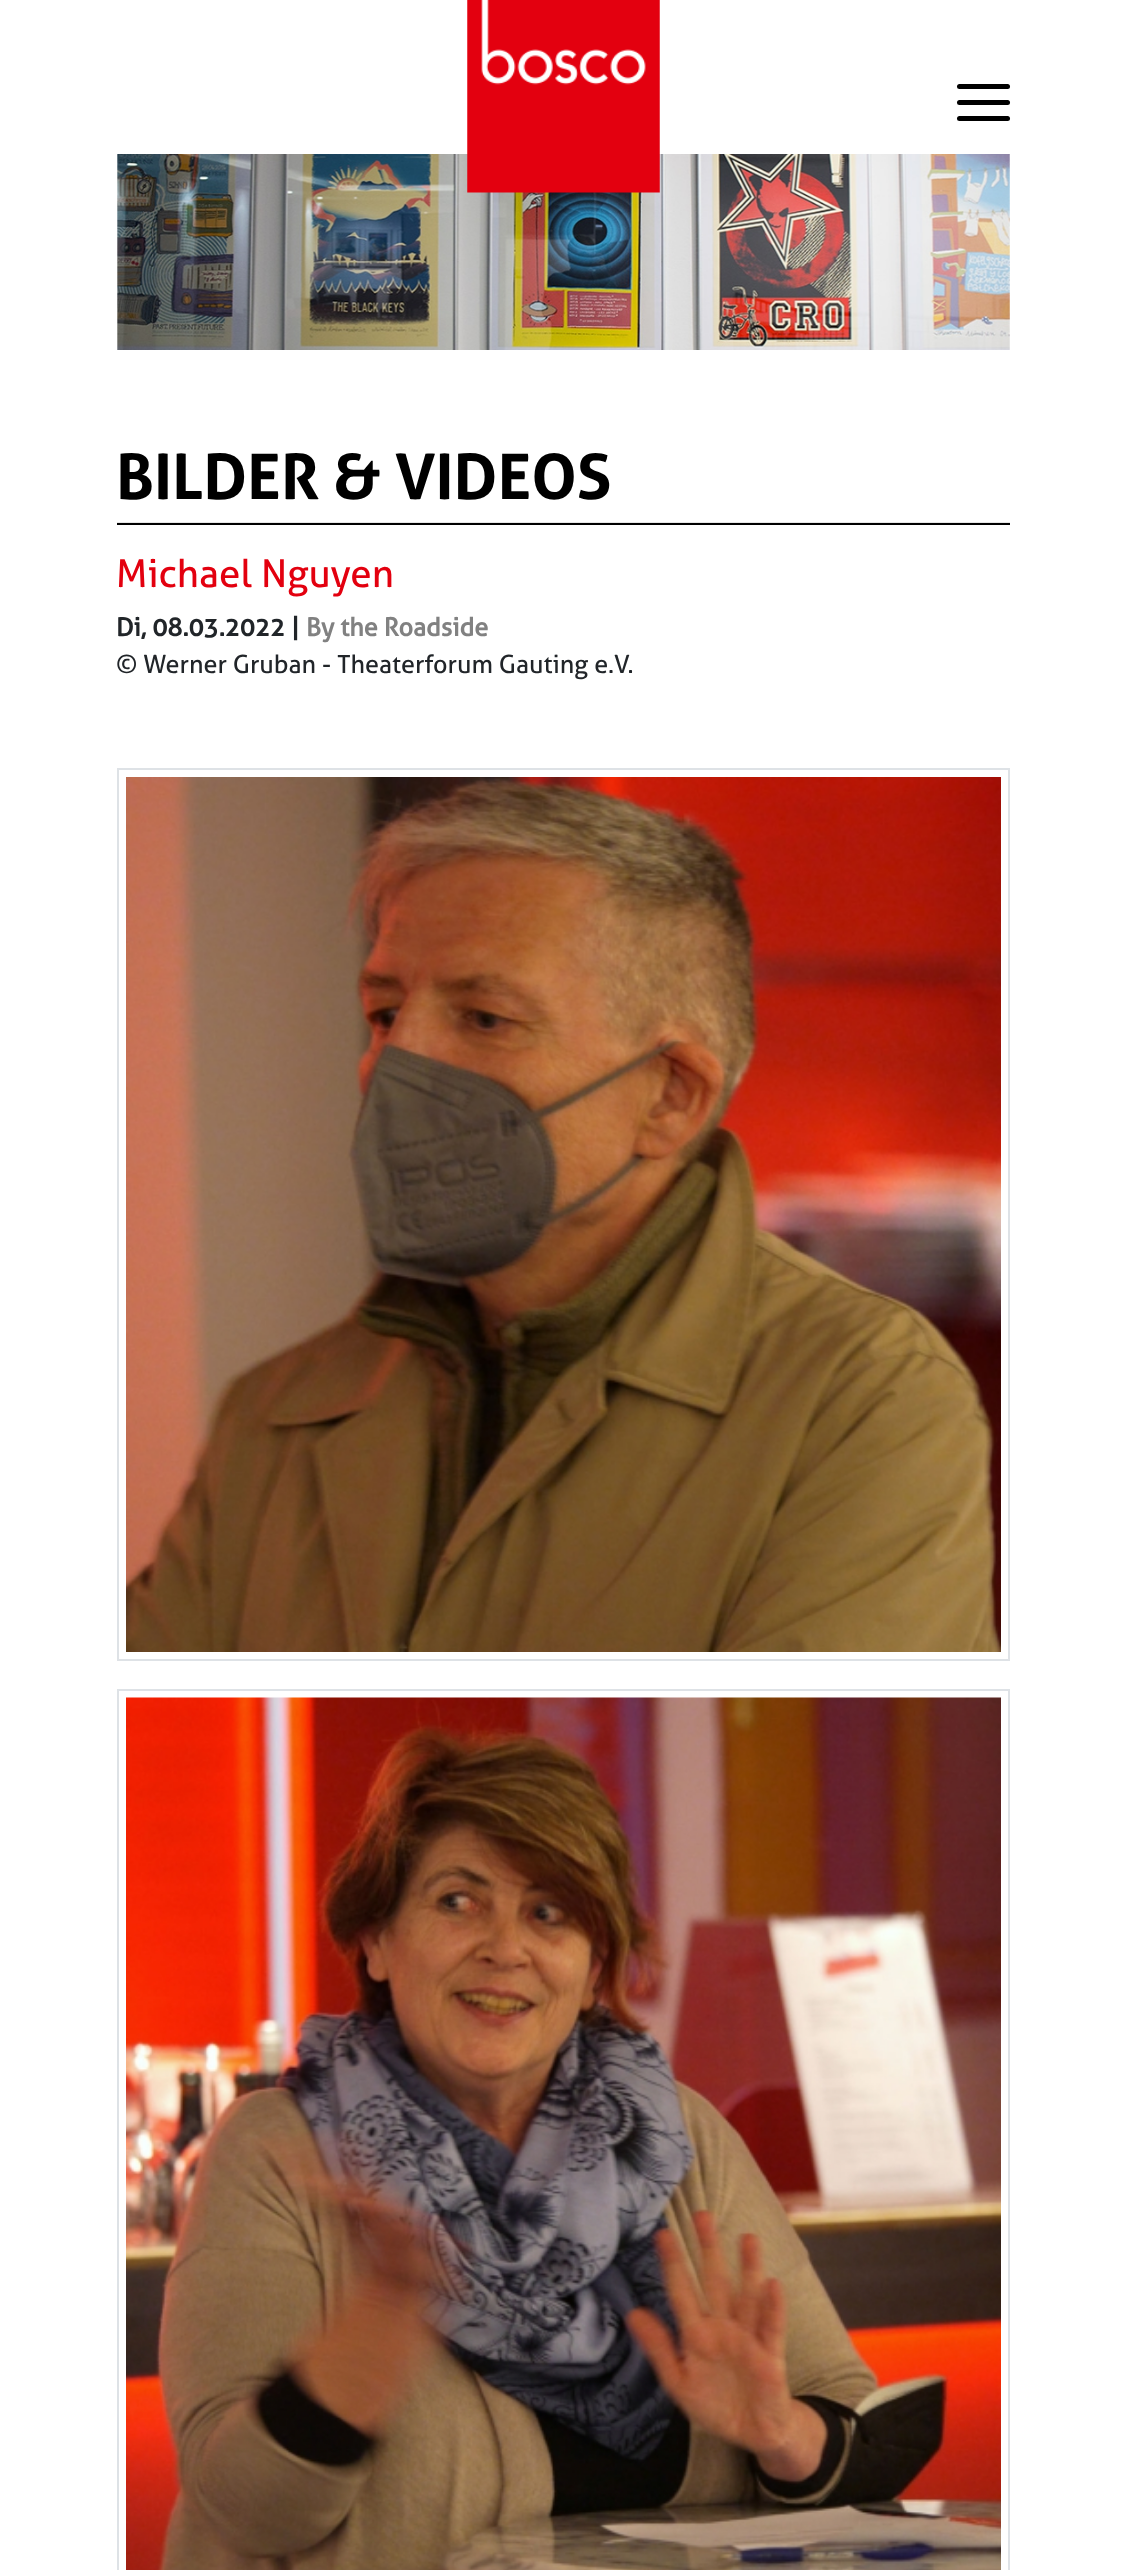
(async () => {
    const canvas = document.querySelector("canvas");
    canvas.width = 1125;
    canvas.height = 2570;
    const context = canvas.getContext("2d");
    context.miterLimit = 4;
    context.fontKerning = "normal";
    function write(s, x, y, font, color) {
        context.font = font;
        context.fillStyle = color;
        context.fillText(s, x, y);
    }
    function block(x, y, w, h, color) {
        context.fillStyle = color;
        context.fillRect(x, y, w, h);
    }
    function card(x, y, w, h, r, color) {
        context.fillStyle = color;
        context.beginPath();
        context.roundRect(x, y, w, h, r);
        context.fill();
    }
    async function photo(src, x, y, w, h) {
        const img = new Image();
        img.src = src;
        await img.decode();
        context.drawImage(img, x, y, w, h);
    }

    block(0, 0, 1125, 2570, "rgb(255, 255, 255)");
    await photo("media/2.png", 117, 154, 893, 196);
    await photo("media/1.png", 467, 0, 193, 193);
    card(957, 116, 53, 5, 2.5, "rgb(0, 0, 0)");
    card(957, 84, 53, 5, 2.5, "rgb(0, 0, 0)");
    card(957, 100, 53, 5, 2.5, "rgb(0, 0, 0)");
    write("BILDER & VIDEOS", 116, 499, "bold 63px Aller", "rgb(0, 0, 0)");
    block(117, 522, 893, 1, "rgb(230, 230, 230)");
    block(117, 523, 893, 2, "rgb(0, 0, 0)");
    write("Michael Nguyen", 116, 587, "38.5px Aller", "rgb(227, 0, 15)");
    write("Di, 08.03.2022 |", 116, 636, "bold 25.2px 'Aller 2'", "rgb(33, 37, 41)");
    write("By the Roadside", 306, 636, "bold 25.2px 'Aller 2'", "rgb(129, 129, 129)");
    write("© Werner Gruban - Theaterforum Gauting e.V.", 116, 673, "25.2px Aller", "rgb(33, 37, 41)");
    context.strokeStyle = "rgb(222, 226, 230)";
    context.lineWidth = 2;
    context.strokeRect(118, 769, 891, 891);
    await photo("media/3.png", 126, 777, 875, 875);
    context.strokeRect(118, 1690, 891, 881);
    await photo("media/4.png", 126, 1697, 875, 873);
})();
